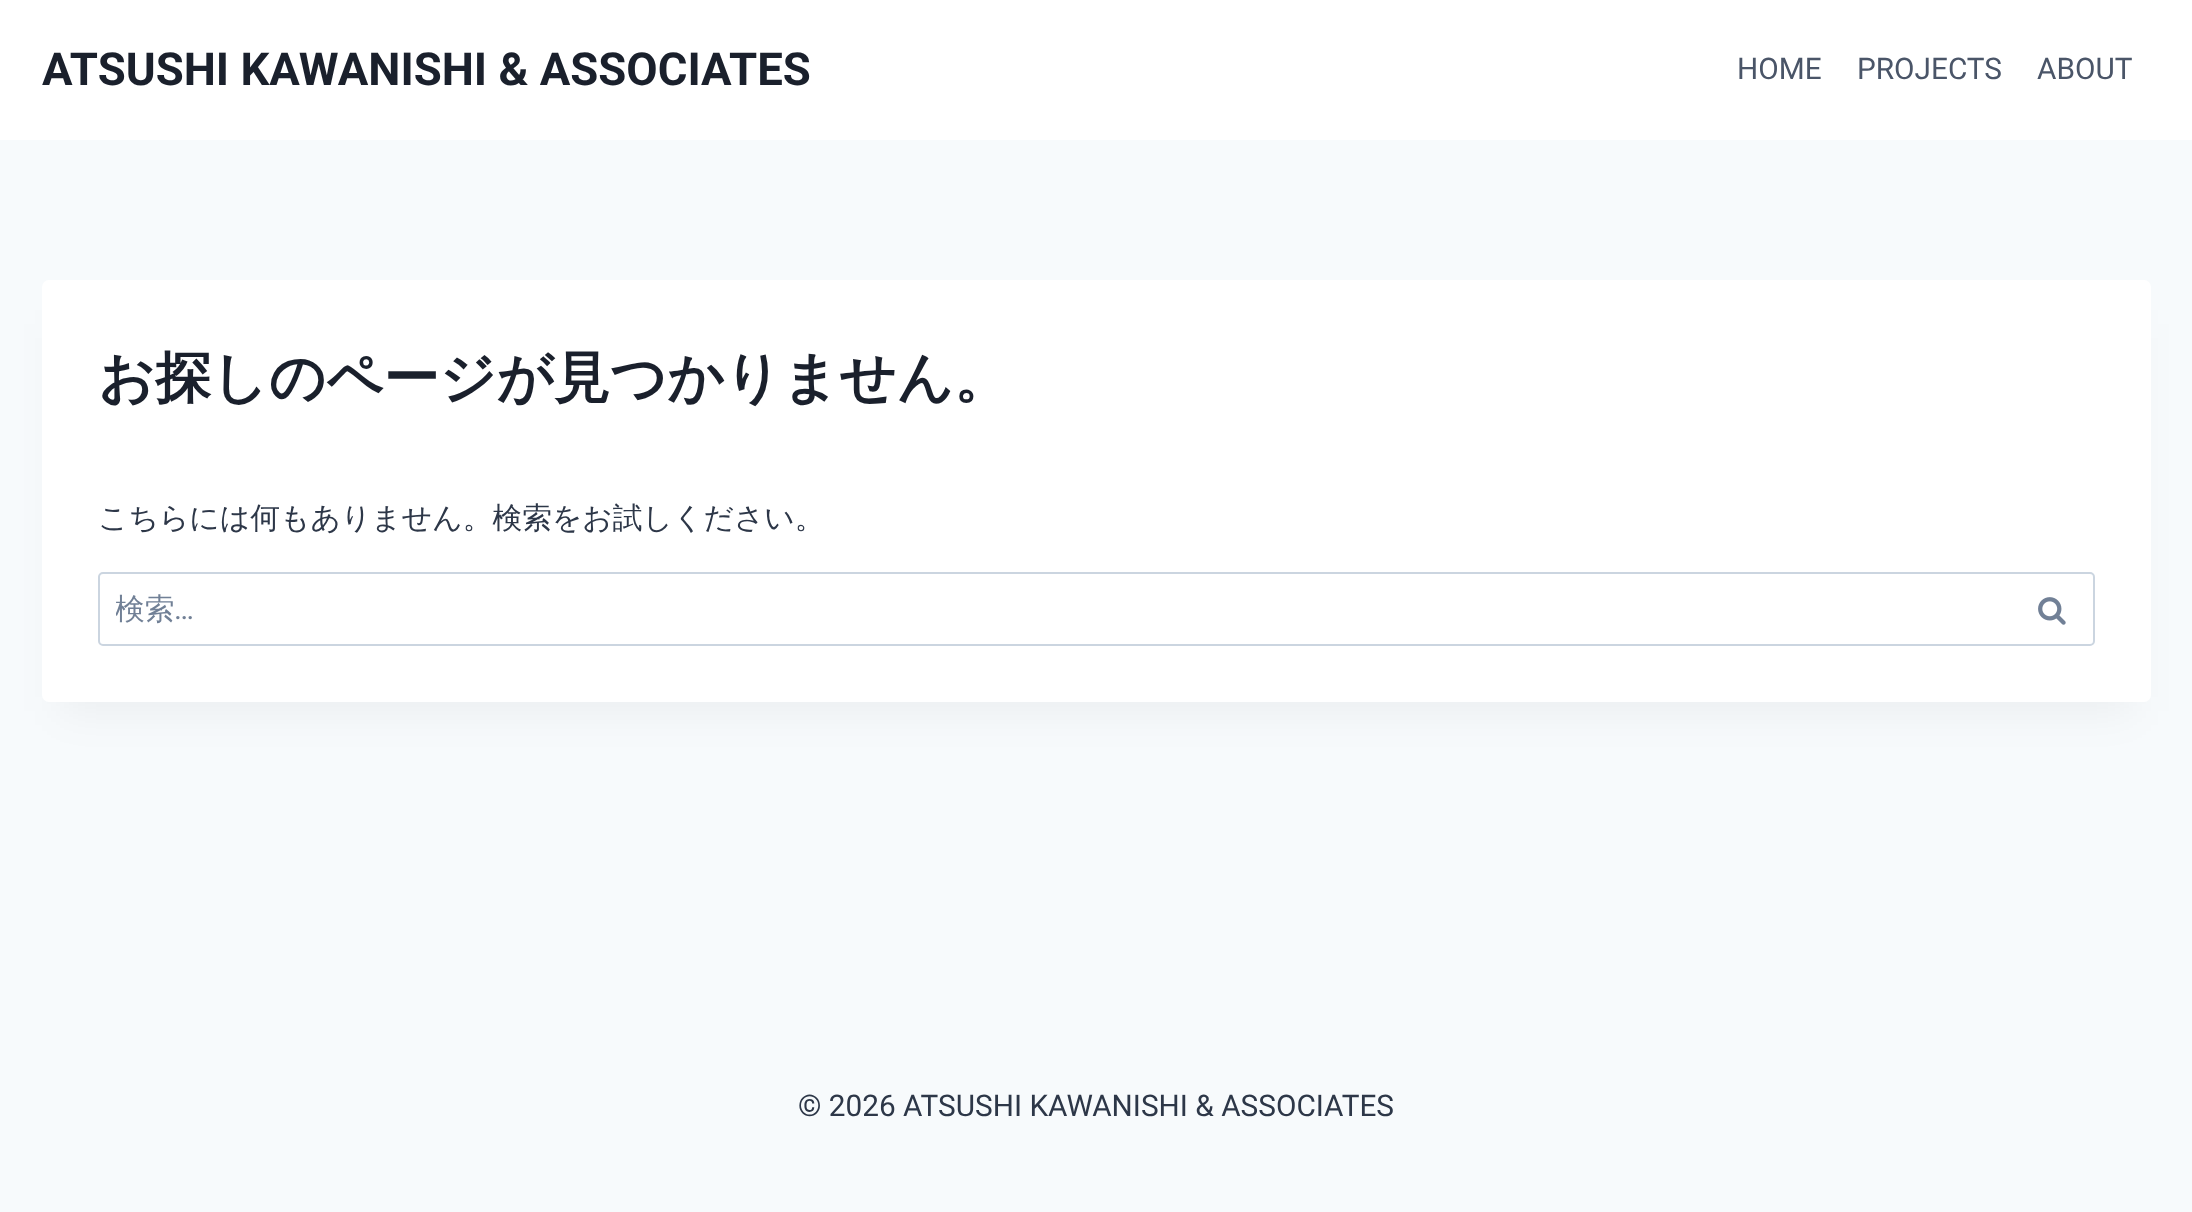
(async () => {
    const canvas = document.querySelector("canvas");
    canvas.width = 2192;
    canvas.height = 1212;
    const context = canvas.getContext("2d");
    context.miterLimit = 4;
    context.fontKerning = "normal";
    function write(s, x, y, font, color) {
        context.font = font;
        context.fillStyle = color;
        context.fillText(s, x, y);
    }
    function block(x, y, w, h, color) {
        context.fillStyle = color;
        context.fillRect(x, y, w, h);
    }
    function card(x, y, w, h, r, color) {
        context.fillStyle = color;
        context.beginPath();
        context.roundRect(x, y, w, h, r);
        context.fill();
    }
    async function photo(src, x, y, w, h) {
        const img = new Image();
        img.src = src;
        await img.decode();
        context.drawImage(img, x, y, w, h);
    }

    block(0, 0, 2192, 1212, "rgb(247, 250, 252)");
    block(0, 0, 2192, 140, "rgb(255, 255, 255)");
    write("ATSUSHI KAWANISHI & ASSOCIATES", 42, 85, "bold 45.5px Roboto", "rgb(26, 32, 44)");
    write("HOME", 1737, 79, "29.75px Roboto", "rgb(74, 85, 104)");
    write("PROJECTS", 1857, 79, "29.75px Roboto", "rgb(74, 85, 104)");
    write("ABOUT", 2037, 79, "29.75px Roboto", "rgb(74, 85, 104)");
    context.fillStyle = "rgba(0, 0, 0, 0.05)";
    context.filter = "blur(22px)";
    context.beginPath();
    context.rect(60, 324, 2073, 387);
    context.fill();
    context.filter = "none";
    card(42, 280, 2109, 422, 7, "rgb(255, 255, 255)");
    write("お探しのページが見つかりません。", 98, 397, "bold 56px WenQuanYi Zen Hei", "rgb(26, 32, 44)");
    write("こちらには何もありません。検索をお試しください。", 98, 528, "500 29.75px WenQuanYi Zen Hei", "rgb(45, 55, 72)");
    context.beginPath();
    context.roundRect(99, 573, 1995, 72, 4);
    context.strokeStyle = "rgb(203, 213, 224)";
    context.lineWidth = 2;
    context.stroke();
    context.save();
    context.beginPath();
    context.rect(116, 588, 1844, 40);
    context.clip();
    write("検索", 115, 619, "500 29.75px WenQuanYi Zen Hei", "rgb(113, 128, 150)");
    context.restore();
    write("…", 174, 619, "29.75px Roboto", "rgb(113, 128, 150)");
    await photo("media/1.png", 2038, 597, 28, 28);
    write("© 2026 ATSUSHI KAWANISHI & ASSOCIATES", 798, 1116, "29.75px Roboto", "rgb(45, 55, 72)");
})();
